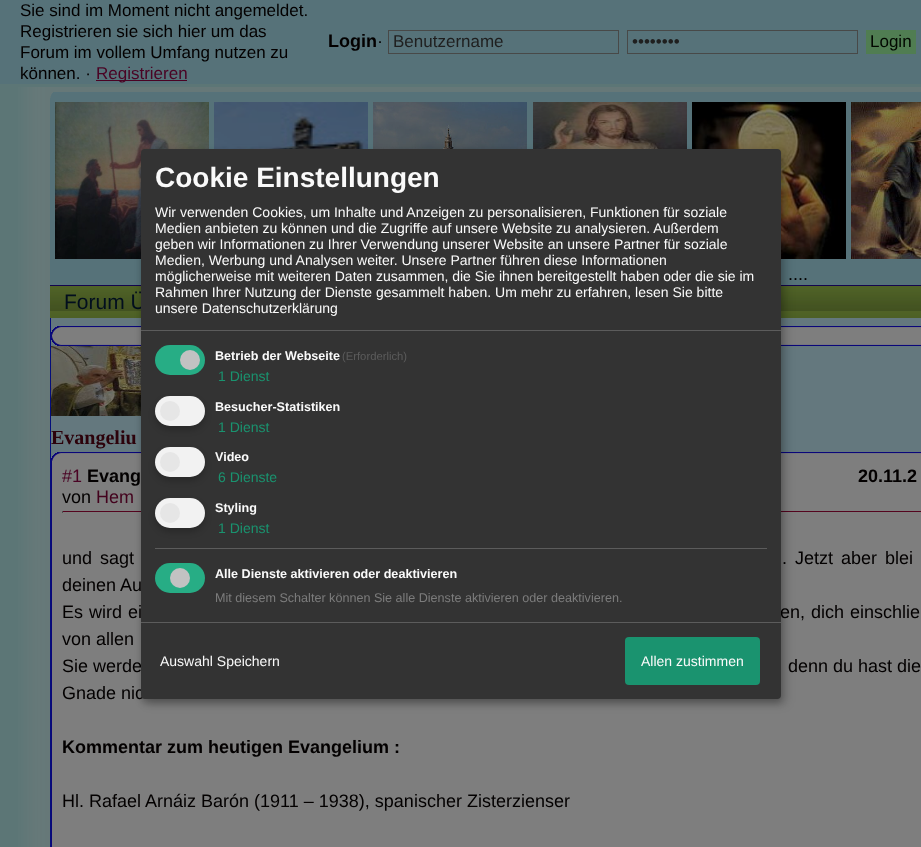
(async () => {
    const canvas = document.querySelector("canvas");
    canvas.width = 921;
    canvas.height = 847;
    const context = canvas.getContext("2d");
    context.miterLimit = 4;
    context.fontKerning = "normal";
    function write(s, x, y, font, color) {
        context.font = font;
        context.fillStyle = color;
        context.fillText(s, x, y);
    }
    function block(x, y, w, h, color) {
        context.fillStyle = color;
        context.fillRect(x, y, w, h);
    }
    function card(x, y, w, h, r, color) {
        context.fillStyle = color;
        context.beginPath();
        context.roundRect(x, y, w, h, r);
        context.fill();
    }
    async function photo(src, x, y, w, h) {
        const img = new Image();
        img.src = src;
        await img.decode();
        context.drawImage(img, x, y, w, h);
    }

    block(0, 0, 921, 847, "rgb(92, 118, 118)");
    block(0, 0, 921, 84, "rgb(86, 114, 121)");
    write("Sie sind im Moment nicht angemeldet.", 20, 16, "17px Liberation Sans", "rgb(3, 0, 0)");
    write("Registrieren sie sich hier um das", 20, 37, "17px Liberation Sans", "rgb(3, 0, 0)");
    write("Forum im vollem Umfang nutzen zu", 20, 58, "17px Liberation Sans", "rgb(3, 0, 0)");
    write("können. ·", 20, 79, "17px Liberation Sans", "rgb(3, 0, 0)");
    block(96, 80, 91, 1, "rgb(74, 3, 36)");
    write("Registrieren", 96, 79, "17px Liberation Sans", "rgb(74, 3, 36)");
    write("Login", 328, 47, "bold 18px Liberation Sans", "rgb(3, 0, 0)");
    write("·", 377, 47, "18px Liberation Sans", "rgb(3, 0, 0)");
    context.strokeStyle = "rgb(72, 73, 72)";
    context.strokeRect(388.5, 30.5, 230, 23);
    write("Benutzername", 393, 47, "17px Liberation Sans", "rgb(31, 31, 31)");
    context.strokeRect(627.5, 30.5, 230, 23);
    write("••••••••", 632, 47, "17px Liberation Sans", "rgb(31, 31, 31)");
    block(866, 30, 50, 24, "rgb(80, 125, 82)");
    write("Login", 870, 47, "17px Liberation Sans", "rgb(2, 8, 0)");
    await photo("media/1.png", 18, 87, 903, 760);
    await photo("media/2.png", 50, 92, 871, 10);
    block(50, 102, 871, 183, "rgb(86, 114, 121)");
    await photo("media/3.png", 55, 102, 154, 157);
    await photo("media/4.png", 214, 102, 154, 47);
    await photo("media/5.png", 373, 102, 154, 47);
    await photo("media/6.png", 533, 102, 154, 47);
    await photo("media/7.png", 692, 102, 154, 157);
    await photo("media/8.png", 851, 102, 70, 157);
    write("....", 788, 280, "18px Liberation Sans", "rgb(3, 0, 0)");
    await photo("media/9.png", 50, 286, 871, 32);
    block(50, 285, 871, 1, "rgb(20, 5, 79)");
    write("Forum Ü", 64, 309, "21px Liberation Sans", "rgb(2, 14, 30)");
    block(51, 318, 870, 140, "rgb(100, 120, 126)");
    block(50, 318, 1, 529, "rgb(4, 14, 123)");
    await photo("media/10.png", 51, 326, 870, 9);
    block(51, 335, 870, 1, "rgb(126, 126, 126)");
    block(51, 335, 1, 2, "rgb(10, 6, 121)");
    await photo("media/11.png", 51, 336, 870, 10);
    await photo("media/12.png", 51, 346, 90, 70);
    write("Evangeliu", 51, 444, "bold 20px Liberation Serif", "rgb(44, 2, 11)");
    await photo("media/10.png", 51, 452, 870, 9);
    block(52, 461, 869, 386, "rgb(126, 126, 126)");
    block(51, 461, 1, 386, "rgb(10, 6, 121)");
    write("#1", 62, 482, "18px Liberation Sans", "rgb(74, 3, 36)");
    write("Evang", 87, 482, "bold 18px Liberation Sans", "rgb(3, 0, 0)");
    write("20.11.2", 858, 482, "bold 18px Liberation Sans", "rgb(3, 0, 0)");
    write("von", 62, 503, "18px Liberation Sans", "rgb(3, 0, 0)");
    write("Hem", 96, 503, "18px Liberation Sans", "rgb(67, 2, 29)");
    block(62, 511, 859, 1, "rgb(84, 4, 30)");
    block(62, 511, 1, 2, "rgb(80, 80, 80)");
    context.wordSpacing = "3px";
    write("und sagt", 62, 564, "18px Liberation Sans", "rgb(3, 0, 0)");
    write(". Jetzt aber blei", 782, 564, "18px Liberation Sans", "rgb(3, 0, 0)");
    context.wordSpacing = "0px";
    write("deinen Au", 62, 591, "18px Liberation Sans", "rgb(3, 0, 0)");
    context.wordSpacing = "1px";
    write("Es wird ei", 62, 618, "18px Liberation Sans", "rgb(3, 0, 0)");
    write("en, dich einschlie", 780, 618, "18px Liberation Sans", "rgb(3, 0, 0)");
    context.wordSpacing = "0px";
    write("von allen", 62, 645, "18px Liberation Sans", "rgb(3, 0, 0)");
    write("Sie werde", 62, 672, "18px Liberation Sans", "rgb(3, 0, 0)");
    write("denn du hast die", 788, 672, "18px Liberation Sans", "rgb(3, 0, 0)");
    write("Gnade nic", 62, 699, "18px Liberation Sans", "rgb(3, 0, 0)");
    write("Kommentar zum heutigen Evangelium :", 62, 753, "bold 18px Liberation Sans", "rgb(3, 0, 0)");
    write("Hl. Rafael Arnáiz Barón (1911 – 1938), spanischer Zisterzienser", 62, 807, "18px Liberation Sans", "rgb(3, 0, 0)");
    context.fillStyle = "rgba(0, 0, 0, 0.19)";
    context.filter = "blur(5px)";
    context.beginPath();
    context.roundRect(146, 154, 640, 550, 4);
    context.fill();
    context.filter = "none";
    context.fillStyle = "rgba(0, 0, 0, 0.2)";
    context.filter = "blur(3px)";
    context.beginPath();
    context.roundRect(141, 153, 640, 550, 4);
    context.fill();
    context.filter = "none";
    card(141, 149, 640, 550, 4, "rgb(51, 51, 51)");
    block(141, 330, 640, 1, "rgb(92, 92, 92)");
    write("Cookie Einstellungen", 155, 187, "bold 28px Liberation Sans", "rgb(250, 250, 250)");
    write("Wir verwenden Cookies, um Inhalte und Anzeigen zu personalisieren, Funktionen für soziale", 155, 217, "14px Liberation Sans", "rgb(250, 250, 250)");
    write("Medien anbieten zu können und die Zugriffe auf unsere Website zu analysieren. Außerdem", 155, 233, "14px Liberation Sans", "rgb(250, 250, 250)");
    write("geben wir Informationen zu Ihrer Verwendung unserer Website an unsere Partner für soziale", 155, 249, "14px Liberation Sans", "rgb(250, 250, 250)");
    write("Medien, Werbung und Analysen weiter. Unsere Partner führen diese Informationen", 155, 265, "14px Liberation Sans", "rgb(250, 250, 250)");
    write("möglicherweise mit weiteren Daten zusammen, die Sie ihnen bereitgestellt haben oder die sie im", 155, 281, "14px Liberation Sans", "rgb(250, 250, 250)");
    write("Rahmen Ihrer Nutzung der Dienste gesammelt haben. Um mehr zu erfahren, lesen Sie bitte", 155, 297, "14px Liberation Sans", "rgb(250, 250, 250)");
    write("unsere Datenschutzerklärung", 155, 313, "14px Liberation Sans", "rgb(250, 250, 250)");
    card(155, 345, 50, 30, 15, "rgb(39, 173, 133)");
    context.fillStyle = "rgb(194, 194, 194)";
    context.beginPath();
    context.arc(190, 360, 10, 0, Math.PI * 2);
    context.fill();
    write("Betrieb der Webseite", 215, 360, "bold 12.6px Liberation Sans", "rgb(250, 250, 250)");
    write("(Erforderlich)", 342, 360, "11.25px Liberation Sans", "rgb(92, 92, 92)");
    write("1 Dienst", 218, 381, "14px Liberation Sans", "rgb(26, 147, 111)");
    context.fillStyle = "rgba(0, 0, 0, 0.2)";
    context.filter = "blur(3px)";
    context.beginPath();
    context.roundRect(155, 400, 50, 30, 15);
    context.fill();
    context.filter = "none";
    card(155, 396, 50, 30, 15, "rgb(242, 242, 242)");
    context.fillStyle = "rgb(230, 230, 230)";
    context.beginPath();
    context.arc(170, 411, 10, 0, Math.PI * 2);
    context.fill();
    write("Besucher-Statistiken", 215, 411, "bold 12.6px Liberation Sans", "rgb(250, 250, 250)");
    write("1 Dienst", 218, 432, "14px Liberation Sans", "rgb(26, 147, 111)");
    context.fillStyle = "rgba(0, 0, 0, 0.2)";
    context.filter = "blur(3px)";
    context.beginPath();
    context.roundRect(155, 451, 50, 30, 15);
    context.fill();
    context.filter = "none";
    card(155, 447, 50, 30, 15, "rgb(242, 242, 242)");
    context.fillStyle = "rgb(230, 230, 230)";
    context.beginPath();
    context.arc(170, 462, 10, 0, Math.PI * 2);
    context.fill();
    write("Video", 215, 461, "bold 12.6px Liberation Sans", "rgb(250, 250, 250)");
    write("6 Dienste", 218, 482, "14px Liberation Sans", "rgb(26, 147, 111)");
    context.fillStyle = "rgba(0, 0, 0, 0.2)";
    context.filter = "blur(3px)";
    context.beginPath();
    context.roundRect(155, 502, 50, 30, 15);
    context.fill();
    context.filter = "none";
    card(155, 498, 50, 30, 15, "rgb(242, 242, 242)");
    context.fillStyle = "rgb(230, 230, 230)";
    context.beginPath();
    context.arc(170, 513, 10, 0, Math.PI * 2);
    context.fill();
    write("Styling", 215, 512, "bold 12.6px Liberation Sans", "rgb(250, 250, 250)");
    write("1 Dienst", 218, 533, "14px Liberation Sans", "rgb(26, 147, 111)");
    block(155, 548, 612, 1, "rgb(92, 92, 92)");
    card(155, 563, 50, 30, 15, "rgb(39, 173, 133)");
    context.fillStyle = "rgb(194, 194, 194)";
    context.beginPath();
    context.arc(180, 578, 10, 0, Math.PI * 2);
    context.fill();
    write("Alle Dienste aktivieren oder deaktivieren", 215, 578, "bold 12.6px Liberation Sans", "rgb(250, 250, 250)");
    write("Mit diesem Schalter können Sie alle Dienste aktivieren oder deaktivieren.", 215, 602, "12.6px Liberation Sans", "rgb(124, 124, 124)");
    block(141, 622, 640, 1, "rgb(92, 92, 92)");
    write("Auswahl Speichern", 160, 666, "14px Liberation Sans", "rgb(250, 250, 250)");
    card(625, 637, 135, 48, 4, "rgb(26, 147, 111)");
    write("Allen zustimmen", 641, 666, "14px Liberation Sans", "rgb(250, 250, 250)");
})();
